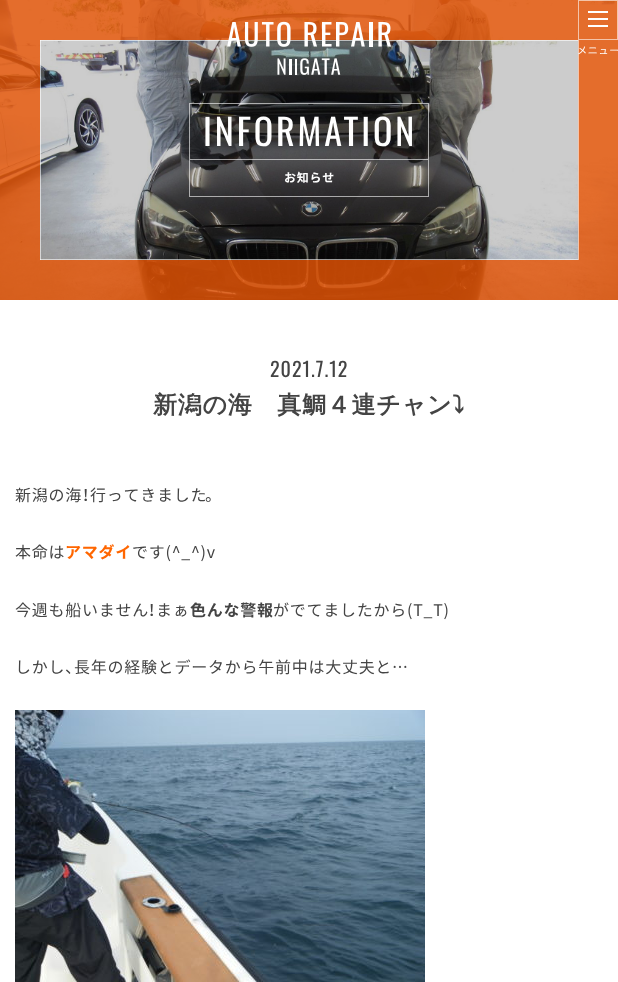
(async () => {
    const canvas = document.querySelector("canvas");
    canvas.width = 618;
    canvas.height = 982;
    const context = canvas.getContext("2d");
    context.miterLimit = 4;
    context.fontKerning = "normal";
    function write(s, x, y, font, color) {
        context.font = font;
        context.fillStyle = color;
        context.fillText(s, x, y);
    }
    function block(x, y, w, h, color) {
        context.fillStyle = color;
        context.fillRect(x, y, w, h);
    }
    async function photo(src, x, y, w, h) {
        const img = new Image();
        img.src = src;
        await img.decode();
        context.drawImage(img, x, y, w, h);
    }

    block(0, 0, 618, 982, "rgb(255, 255, 255)");
    await photo("media/2.png", 0, 0, 618, 300);
    block(0, 0, 618, 40, "rgba(234, 85, 4, 0.8)");
    block(40, 40, 538, 1, "rgba(255, 255, 255, 0.6)");
    await photo("media/1.png", 227, 21, 164, 54);
    context.strokeStyle = "rgba(255, 255, 255, 0.6)";
    context.strokeRect(578.5, 0.5, 39, 39);
    block(588, 11, 20, 2, "rgb(255, 255, 255)");
    block(588, 18, 20, 2, "rgb(255, 255, 255)");
    block(588, 25, 20, 2, "rgb(255, 255, 255)");
    block(578, 40, 40, 220, "rgba(234, 85, 4, 0.8)");
    block(578, 40, 1, 220, "rgba(255, 255, 255, 0.6)");
    context.letterSpacing = "0.75px";
    write("メニュー", 577, 54, "10px Noto Sans JP", "rgb(255, 255, 255)");
    block(0, 40, 40, 220, "rgba(234, 85, 4, 0.8)");
    block(40, 259, 538, 1, "rgba(255, 255, 255, 0.6)");
    block(40, 40, 1, 220, "rgba(255, 255, 255, 0.6)");
    context.strokeRect(189.5, 103.5, 239, 93);
    block(190, 159, 238, 1, "rgba(255, 255, 255, 0.6)");
    context.letterSpacing = "2.9px";
    write("INFORMATION", 203, 146, "36px Oswald", "rgb(255, 255, 255)");
    context.letterSpacing = "0.75px";
    write("お知らせ", 284, 182, "bold 12px Noto Sans JP", "rgb(255, 255, 255)");
    block(0, 260, 618, 40, "rgba(234, 85, 4, 0.8)");
    context.letterSpacing = "1px";
    write("2021.7.12", 270, 377, "20px Oswald", "rgb(68, 68, 68)");
    context.letterSpacing = "0.75px";
    write("新潟の海　真鯛４連チャン", 153, 413, "bold 24px WenQuanYi Zen Hei", "rgb(68, 68, 68)");
    write("⤵", 452, 413, "bold 24px IPAPGothic", "rgb(68, 68, 68)");
    write("新潟の海", 15, 501, "16px Noto Sans JP", "rgb(68, 68, 68)");
    write("！", 82, 501, "16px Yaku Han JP", "rgb(68, 68, 68)");
    write("行ってきました", 90, 501, "16px Noto Sans JP", "rgb(68, 68, 68)");
    write("。", 205, 501, "16px Yaku Han JP", "rgb(68, 68, 68)");
    write("本命は", 15, 558, "16px Noto Sans JP", "rgb(68, 68, 68)");
    write("アマダイ", 65, 558, "bold 16px Noto Sans JP", "rgb(255, 102, 0)");
    write("です(^_^)v", 132, 558, "16px Noto Sans JP", "rgb(68, 68, 68)");
    write("今週も船いません", 15, 616, "16px Noto Sans JP", "rgb(68, 68, 68)");
    write("！", 148, 616, "16px Yaku Han JP", "rgb(68, 68, 68)");
    write("まぁ", 156, 616, "16px Noto Sans JP", "rgb(68, 68, 68)");
    write("色んな警報", 190, 616, "bold 16px Noto Sans JP", "rgb(68, 68, 68)");
    write("がでてましたから(T_T)", 273, 616, "16px Noto Sans JP", "rgb(68, 68, 68)");
    write("しかし", 15, 673, "16px Noto Sans JP", "rgb(68, 68, 68)");
    write("長年の経験とデータから午前中は大丈夫と", 74, 673, "16px Noto Sans JP", "rgb(68, 68, 68)");
    write("…", 392, 673, "16px Yaku Han JP", "rgb(68, 68, 68)");
    write("、", 65, 673, "16px Yaku Han JP", "rgb(68, 68, 68)");
    await photo("media/3.png", 15, 710, 410, 272);
})();
